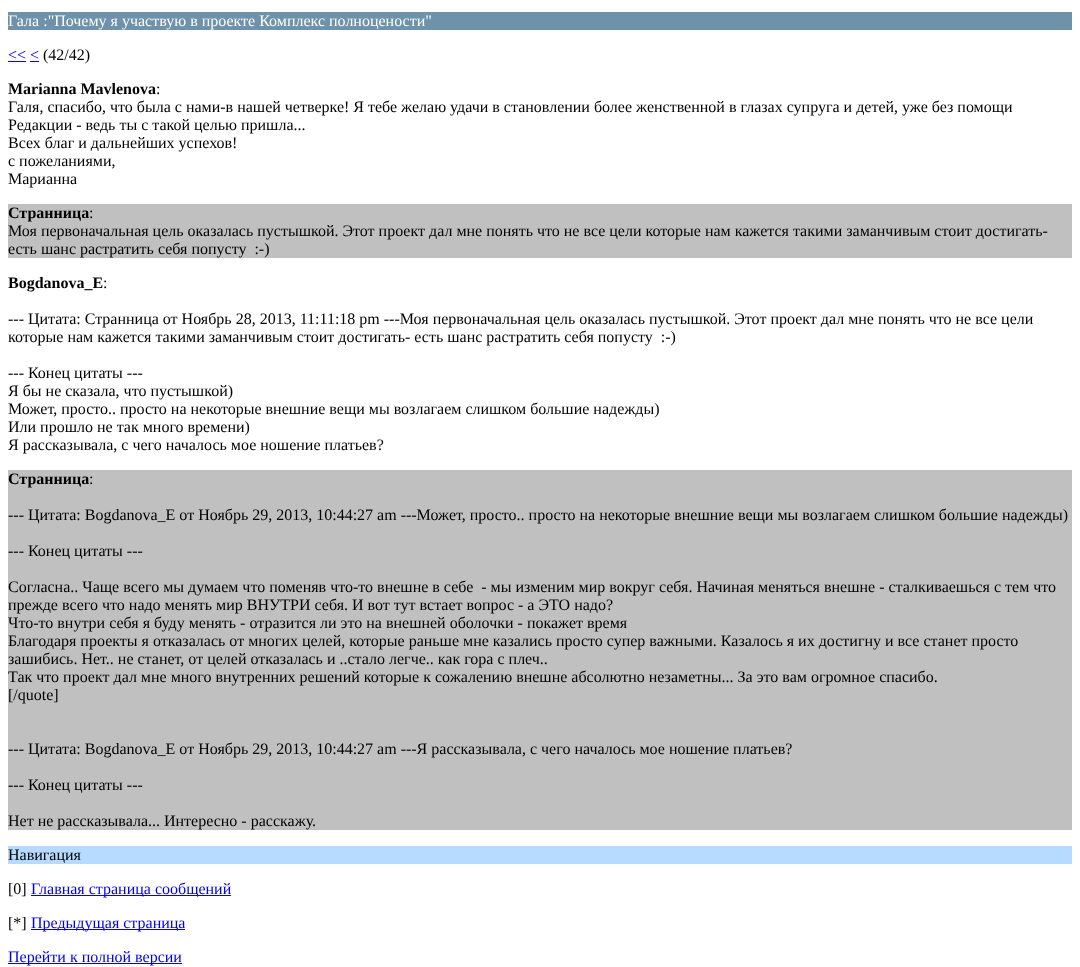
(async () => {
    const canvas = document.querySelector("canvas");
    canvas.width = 1080;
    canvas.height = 967;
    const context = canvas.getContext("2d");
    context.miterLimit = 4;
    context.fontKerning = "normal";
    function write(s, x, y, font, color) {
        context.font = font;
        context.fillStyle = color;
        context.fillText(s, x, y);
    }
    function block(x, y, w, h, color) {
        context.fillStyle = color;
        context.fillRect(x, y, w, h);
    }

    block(0, 0, 1080, 967, "rgb(255, 255, 255)");
    block(8, 12, 1064, 18, "rgb(109, 146, 170)");
    write("Гала :\"Почему я участвую в проекте Комплекс полноцености\"", 8, 26, "16px Liberation Serif", "rgb(255, 255, 255)");
    write("<< <", 8, 60, "16px Liberation Serif", "rgb(0, 0, 238)");
    block(8, 61, 18, 1, "rgb(0, 0, 238)");
    write("(42/42)", 43, 60, "16px Liberation Serif", "rgb(0, 0, 0)");
    block(30, 61, 9, 1, "rgb(0, 0, 238)");
    write("Marianna Mavlenova", 8, 94, "bold 16px Liberation Serif", "rgb(0, 0, 0)");
    write(":", 156, 94, "16px Liberation Serif", "rgb(0, 0, 0)");
    write("Галя, спасибо, что была с нами-в нашей четверке! Я тебе желаю удачи в становлении более женственной в глазах супруга и детей, уже без помощи", 8, 112, "16px Liberation Serif", "rgb(0, 0, 0)");
    write("Редакции - ведь ты с такой целью пришла...", 8, 130, "16px Liberation Serif", "rgb(0, 0, 0)");
    write("Всех благ и дальнейших успехов!", 8, 148, "16px Liberation Serif", "rgb(0, 0, 0)");
    write("с пожеланиями,", 8, 166, "16px Liberation Serif", "rgb(0, 0, 0)");
    write("Марианна", 8, 184, "16px Liberation Serif", "rgb(0, 0, 0)");
    block(8, 204, 1064, 54, "rgb(192, 192, 192)");
    write("Странница", 8, 218, "bold 16px Liberation Serif", "rgb(0, 0, 0)");
    write(":", 89, 218, "16px Liberation Serif", "rgb(0, 0, 0)");
    write("Моя первоначальная цель оказалась пустышкой. Этот проект дал мне понять что не все цели которые нам кажется такими заманчивым стоит достигать-", 8, 236, "16px Liberation Serif", "rgb(0, 0, 0)");
    write("есть шанс растратить себя попусту  :-)", 8, 254, "16px Liberation Serif", "rgb(0, 0, 0)");
    write("Bogdanova_E", 8, 288, "bold 16px Liberation Serif", "rgb(0, 0, 0)");
    write(":", 103, 288, "16px Liberation Serif", "rgb(0, 0, 0)");
    write("--- Цитата: Странница от Ноябрь 28, 2013, 11:11:18 pm ---Моя первоначальная цель оказалась пустышкой. Этот проект дал мне понять что не все цели", 8, 324, "16px Liberation Serif", "rgb(0, 0, 0)");
    write("которые нам кажется такими заманчивым стоит достигать- есть шанс растратить себя попусту  :-)", 8, 342, "16px Liberation Serif", "rgb(0, 0, 0)");
    write("--- Конец цитаты ---", 8, 378, "16px Liberation Serif", "rgb(0, 0, 0)");
    write("Я бы не сказала, что пустышкой)", 8, 396, "16px Liberation Serif", "rgb(0, 0, 0)");
    write("Может, просто.. просто на некоторые внешние вещи мы возлагаем слишком большие надежды)", 8, 414, "16px Liberation Serif", "rgb(0, 0, 0)");
    write("Или прошло не так много времени)", 8, 432, "16px Liberation Serif", "rgb(0, 0, 0)");
    write("Я рассказывала, с чего началось мое ношение платьев?", 8, 450, "16px Liberation Serif", "rgb(0, 0, 0)");
    block(8, 470, 1064, 360, "rgb(192, 192, 192)");
    write("Странница", 8, 484, "bold 16px Liberation Serif", "rgb(0, 0, 0)");
    write(":", 89, 484, "16px Liberation Serif", "rgb(0, 0, 0)");
    write("--- Цитата: Bogdanova_E от Ноябрь 29, 2013, 10:44:27 am ---Может, просто.. просто на некоторые внешние вещи мы возлагаем слишком большие надежды)", 8, 520, "16px Liberation Serif", "rgb(0, 0, 0)");
    write("--- Конец цитаты ---", 8, 556, "16px Liberation Serif", "rgb(0, 0, 0)");
    write("Согласна.. Чаще всего мы думаем что поменяв что-то внешне в себе  - мы изменим мир вокруг себя. Начиная меняться внешне - сталкиваешься с тем что", 8, 592, "16px Liberation Serif", "rgb(0, 0, 0)");
    write("прежде всего что надо менять мир ВНУТРИ себя. И вот тут встает вопрос - а ЭТО надо?", 8, 610, "16px Liberation Serif", "rgb(0, 0, 0)");
    write("Что-то внутри себя я буду менять - отразится ли это на внешней оболочки - покажет время", 8, 628, "16px Liberation Serif", "rgb(0, 0, 0)");
    write("Благодаря проекты я отказалась от многих целей, которые раньше мне казались просто супер важными. Казалось я их достигну и все станет просто", 8, 646, "16px Liberation Serif", "rgb(0, 0, 0)");
    write("зашибись. Нет.. не станет, от целей отказалась и ..стало легче.. как гора с плеч..", 8, 664, "16px Liberation Serif", "rgb(0, 0, 0)");
    write("Так что проект дал мне много внутренних решений которые к сожалению внешне абсолютно незаметны... За это вам огромное спасибо.", 8, 682, "16px Liberation Serif", "rgb(0, 0, 0)");
    write("[/quote]", 8, 700, "16px Liberation Serif", "rgb(0, 0, 0)");
    write("--- Цитата: Bogdanova_E от Ноябрь 29, 2013, 10:44:27 am ---Я рассказывала, с чего началось мое ношение платьев?", 8, 754, "16px Liberation Serif", "rgb(0, 0, 0)");
    write("--- Конец цитаты ---", 8, 790, "16px Liberation Serif", "rgb(0, 0, 0)");
    write("Нет не рассказывала... Интересно - расскажу.", 8, 826, "16px Liberation Serif", "rgb(0, 0, 0)");
    block(8, 846, 1064, 18, "rgb(182, 219, 255)");
    write("Навигация", 8, 860, "16px Liberation Serif", "rgb(0, 0, 0)");
    write("[0]", 8, 894, "16px Liberation Serif", "rgb(0, 0, 0)");
    block(31, 895, 200, 1, "rgb(0, 0, 238)");
    write("Главная страница сообщений", 31, 894, "16px Liberation Serif", "rgb(0, 0, 238)");
    write("[*]", 8, 928, "16px Liberation Serif", "rgb(0, 0, 0)");
    block(31, 929, 154, 1, "rgb(0, 0, 238)");
    write("Предыдущая страница", 31, 928, "16px Liberation Serif", "rgb(0, 0, 238)");
    block(8, 963, 174, 1, "rgb(0, 0, 238)");
    write("Перейти к полной версии", 8, 962, "16px Liberation Serif", "rgb(0, 0, 238)");
})();
